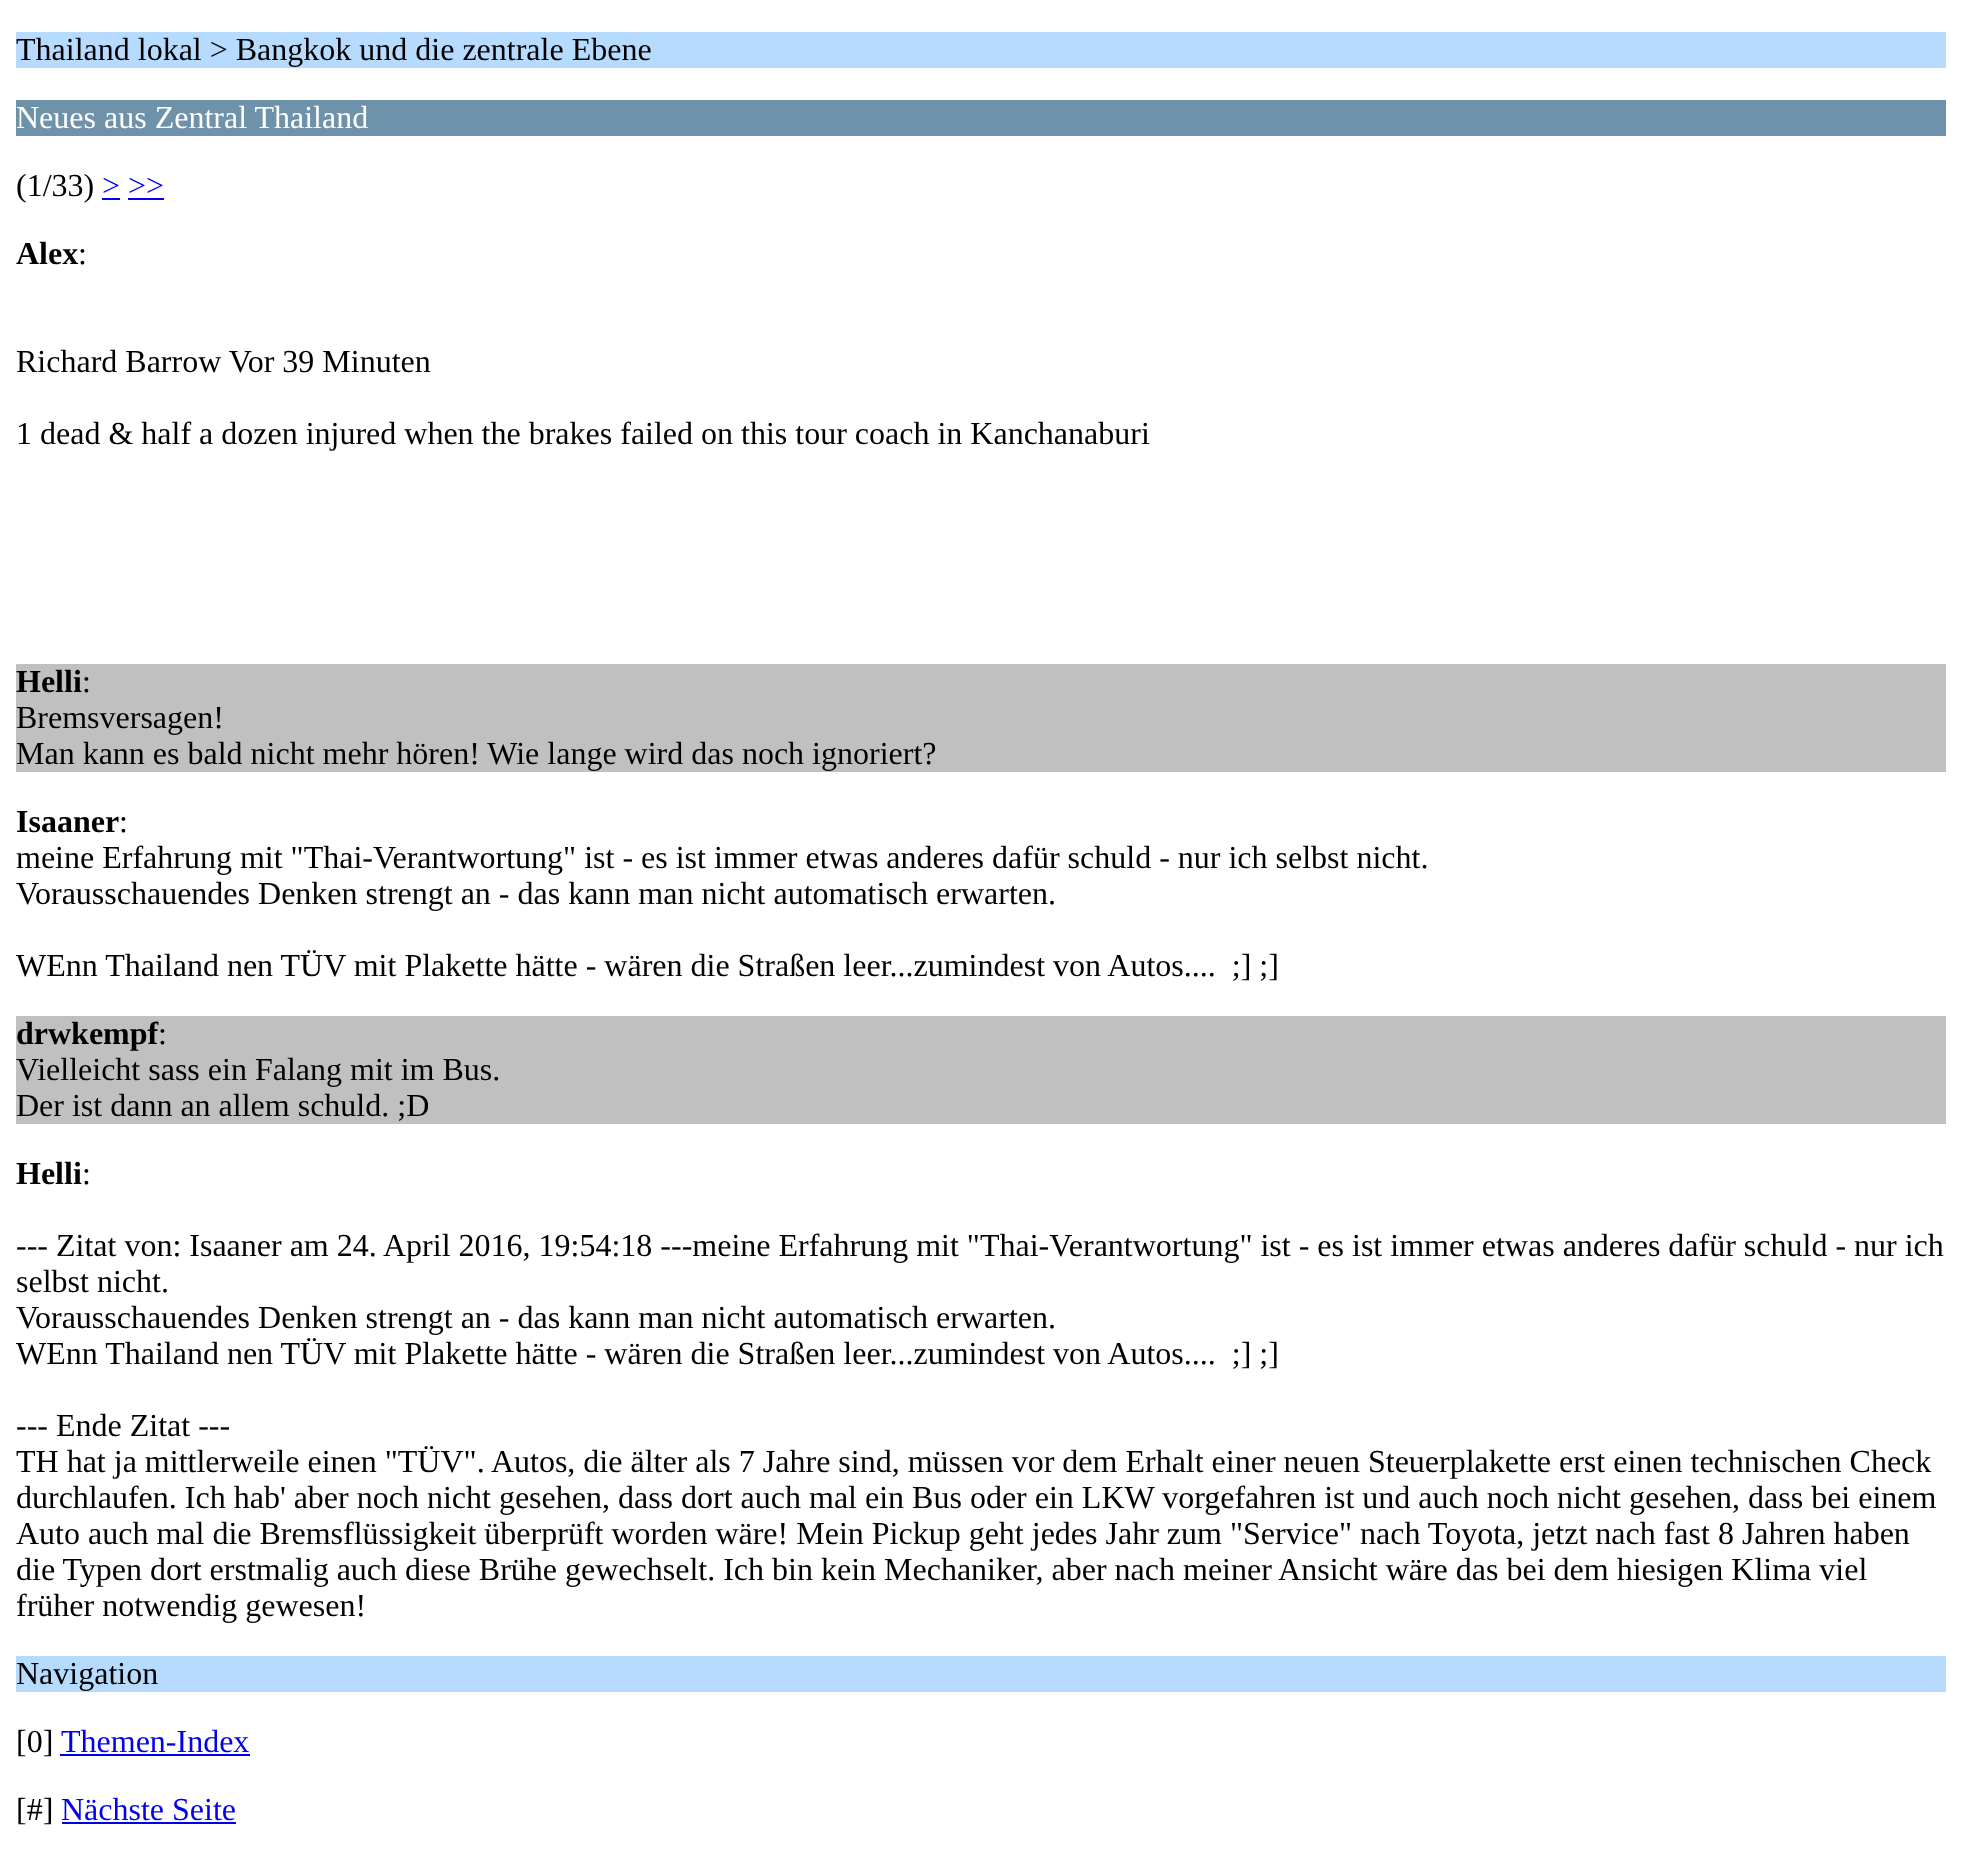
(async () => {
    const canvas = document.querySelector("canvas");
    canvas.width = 1962;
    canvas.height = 1873;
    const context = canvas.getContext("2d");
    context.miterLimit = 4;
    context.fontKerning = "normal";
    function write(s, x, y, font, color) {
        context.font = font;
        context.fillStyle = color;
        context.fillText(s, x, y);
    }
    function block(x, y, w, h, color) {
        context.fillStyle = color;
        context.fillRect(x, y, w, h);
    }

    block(0, 0, 1962, 1873, "rgb(255, 255, 255)");
    block(16, 32, 1930, 36, "rgb(182, 219, 255)");
    write("Thailand lokal > Bangkok und die zentrale Ebene", 16, 60, "32px Liberation Serif", "rgb(0, 0, 0)");
    block(16, 100, 1930, 36, "rgb(109, 146, 170)");
    write("Neues aus Zentral Thailand", 16, 128, "32px Liberation Serif", "rgb(255, 255, 255)");
    write("(1/33)", 16, 196, "32px Liberation Serif", "rgb(0, 0, 0)");
    write("> >>", 102, 196, "32px Liberation Serif", "rgb(0, 0, 238)");
    block(102, 198, 18, 2, "rgb(0, 0, 238)");
    block(128, 198, 36, 2, "rgb(0, 0, 238)");
    write("Alex", 16, 264, "bold 32px Liberation Serif", "rgb(0, 0, 0)");
    write(":", 78, 264, "32px Liberation Serif", "rgb(0, 0, 0)");
    write("Richard Barrow Vor 39 Minuten", 16, 372, "32px Liberation Serif", "rgb(0, 0, 0)");
    write("1 dead & half a dozen injured when the brakes failed on this tour coach in Kanchanaburi", 16, 444, "32px Liberation Serif", "rgb(0, 0, 0)");
    block(16, 664, 1930, 108, "rgb(192, 192, 192)");
    write("Helli", 16, 692, "bold 32px Liberation Serif", "rgb(0, 0, 0)");
    write(":", 82, 692, "32px Liberation Serif", "rgb(0, 0, 0)");
    write("Bremsversagen!", 16, 728, "32px Liberation Serif", "rgb(0, 0, 0)");
    write("Man kann es bald nicht mehr hören! Wie lange wird das noch ignoriert?", 16, 764, "32px Liberation Serif", "rgb(0, 0, 0)");
    write("Isaaner", 16, 832, "bold 32px Liberation Serif", "rgb(0, 0, 0)");
    write(":", 119, 832, "32px Liberation Serif", "rgb(0, 0, 0)");
    write("meine Erfahrung mit \"Thai-Verantwortung\" ist - es ist immer etwas anderes dafür schuld - nur ich selbst nicht.", 16, 868, "32px Liberation Serif", "rgb(0, 0, 0)");
    write("Vorausschauendes Denken strengt an - das kann man nicht automatisch erwarten.", 16, 904, "32px Liberation Serif", "rgb(0, 0, 0)");
    write("WEnn Thailand nen TÜV mit Plakette hätte - wären die Straßen leer...zumindest von Autos....  ;] ;]", 16, 976, "32px Liberation Serif", "rgb(0, 0, 0)");
    block(16, 1016, 1930, 108, "rgb(192, 192, 192)");
    write("drwkempf", 16, 1044, "bold 32px Liberation Serif", "rgb(0, 0, 0)");
    write(":", 158, 1044, "32px Liberation Serif", "rgb(0, 0, 0)");
    write("Vielleicht sass ein Falang mit im Bus.", 16, 1080, "32px Liberation Serif", "rgb(0, 0, 0)");
    write("Der ist dann an allem schuld. ;D", 16, 1116, "32px Liberation Serif", "rgb(0, 0, 0)");
    write("Helli", 16, 1184, "bold 32px Liberation Serif", "rgb(0, 0, 0)");
    write(":", 82, 1184, "32px Liberation Serif", "rgb(0, 0, 0)");
    write("--- Zitat von: Isaaner am 24. April 2016, 19:54:18 ---meine Erfahrung mit \"Thai-Verantwortung\" ist - es ist immer etwas anderes dafür schuld - nur ich", 16, 1256, "32px Liberation Serif", "rgb(0, 0, 0)");
    write("selbst nicht.", 16, 1292, "32px Liberation Serif", "rgb(0, 0, 0)");
    write("Vorausschauendes Denken strengt an - das kann man nicht automatisch erwarten.", 16, 1328, "32px Liberation Serif", "rgb(0, 0, 0)");
    write("WEnn Thailand nen TÜV mit Plakette hätte - wären die Straßen leer...zumindest von Autos....  ;] ;]", 16, 1364, "32px Liberation Serif", "rgb(0, 0, 0)");
    write("--- Ende Zitat ---", 16, 1436, "32px Liberation Serif", "rgb(0, 0, 0)");
    write("TH hat ja mittlerweile einen \"TÜV\". Autos, die älter als 7 Jahre sind, müssen vor dem Erhalt einer neuen Steuerplakette erst einen technischen Check", 16, 1472, "32px Liberation Serif", "rgb(0, 0, 0)");
    write("durchlaufen. Ich hab' aber noch nicht gesehen, dass dort auch mal ein Bus oder ein LKW vorgefahren ist und auch noch nicht gesehen, dass bei einem", 16, 1508, "32px Liberation Serif", "rgb(0, 0, 0)");
    write("Auto auch mal die Bremsflüssigkeit überprüft worden wäre! Mein Pickup geht jedes Jahr zum \"Service\" nach Toyota, jetzt nach fast 8 Jahren haben", 16, 1544, "32px Liberation Serif", "rgb(0, 0, 0)");
    write("die Typen dort erstmalig auch diese Brühe gewechselt. Ich bin kein Mechaniker, aber nach meiner Ansicht wäre das bei dem hiesigen Klima viel", 16, 1580, "32px Liberation Serif", "rgb(0, 0, 0)");
    write("früher notwendig gewesen!", 16, 1616, "32px Liberation Serif", "rgb(0, 0, 0)");
    block(16, 1656, 1930, 36, "rgb(182, 219, 255)");
    write("Navigation", 16, 1684, "32px Liberation Serif", "rgb(0, 0, 0)");
    write("[0]", 16, 1752, "32px Liberation Serif", "rgb(0, 0, 0)");
    write("Themen-Index", 61, 1752, "32px Liberation Serif", "rgb(0, 0, 238)");
    block(60, 1754, 190, 2, "rgb(0, 0, 238)");
    write("[#]", 16, 1820, "32px Liberation Serif", "rgb(0, 0, 0)");
    write("Nächste Seite", 61, 1820, "32px Liberation Serif", "rgb(0, 0, 238)");
    block(62, 1822, 174, 2, "rgb(0, 0, 238)");
})();
